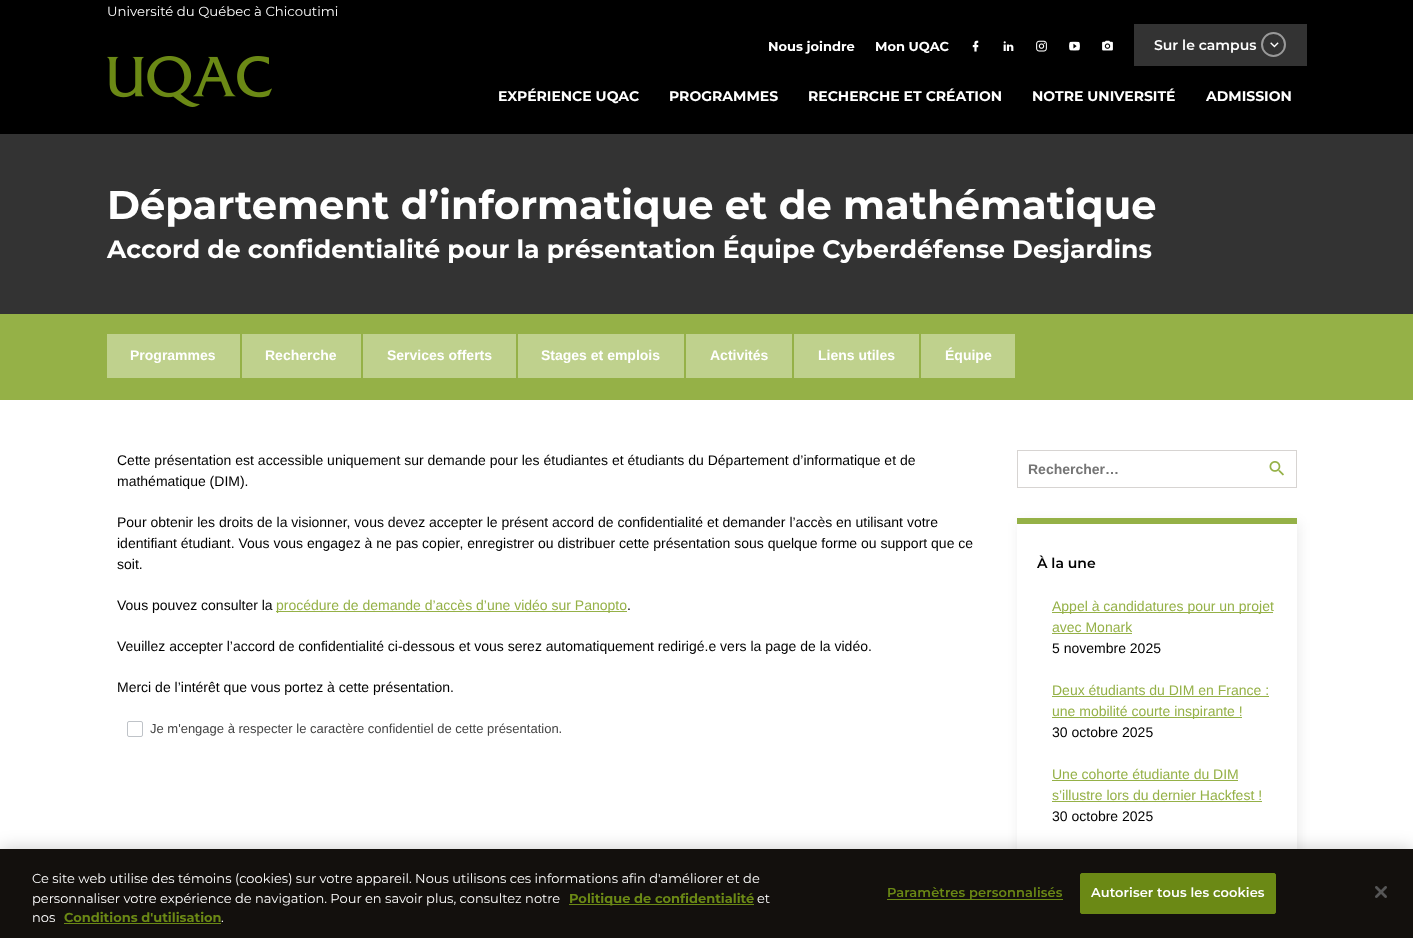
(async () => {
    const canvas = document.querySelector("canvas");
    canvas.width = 1413;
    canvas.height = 938;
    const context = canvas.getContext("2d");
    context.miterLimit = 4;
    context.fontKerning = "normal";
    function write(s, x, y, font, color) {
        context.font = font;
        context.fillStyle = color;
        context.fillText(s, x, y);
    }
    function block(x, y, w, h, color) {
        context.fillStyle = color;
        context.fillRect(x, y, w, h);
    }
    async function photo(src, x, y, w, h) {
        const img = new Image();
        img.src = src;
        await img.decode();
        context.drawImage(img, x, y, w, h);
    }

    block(0, 0, 1413, 938, "rgb(255, 255, 255)");
    block(0, 0, 1413, 134, "rgb(0, 0, 0)");
    write("Université du Québec à Chicoutimi", 107, 16, "13.25px Montserrat", "rgb(255, 255, 255)");
    write("Nous joindre", 768, 51, "bold 13px Montserrat", "rgb(255, 255, 255)");
    write("Mon UQAC", 875, 51, "bold 13px Montserrat", "rgb(255, 255, 255)");
    await photo("media/1.png", 972, 40, 7, 12);
    await photo("media/2.png", 1003, 41, 11, 10);
    await photo("media/3.png", 1036, 40, 11, 12);
    await photo("media/4.png", 1069, 41, 11, 10);
    await photo("media/5.png", 1102, 40, 11, 11);
    block(1134, 24, 173, 42, "rgb(51, 51, 51)");
    write("Sur le campus", 1154, 50, "600 14px Montserrat", "rgb(255, 255, 255)");
    context.beginPath();
    context.arc(1273.5, 44.5, 11.5, 0, Math.PI * 2);
    context.strokeStyle = "rgb(153, 153, 153)";
    context.lineWidth = 2;
    context.stroke();
    await photo("media/6.png", 1270, 42, 9, 6);
    await photo("media/7.png", 107, 56, 165, 51);
    write("EXPÉRIENCE UQAC", 498, 101, "bold 14px Montserrat", "rgb(255, 255, 255)");
    write("PROGRAMMES", 669, 101, "bold 14px Montserrat", "rgb(255, 255, 255)");
    write("RECHERCHE ET CRÉATION", 808, 101, "bold 14px Montserrat", "rgb(255, 255, 255)");
    write("NOTRE UNIVERSITÉ", 1032, 101, "bold 14px Montserrat", "rgb(255, 255, 255)");
    write("ADMISSION", 1206, 101, "bold 14px Montserrat", "rgb(255, 255, 255)");
    block(0, 134, 1413, 180, "rgb(51, 51, 51)");
    write("Département d’informatique et de mathématique", 107, 219, "bold 40px Montserrat", "rgb(255, 255, 255)");
    write("Accord de confidentialité pour la présentation Équipe Cyberdéfense Desjardins", 107, 258, "bold 25.2px Montserrat", "rgb(255, 255, 255)");
    block(0, 314, 1413, 86, "rgb(149, 177, 71)");
    block(107, 334, 133, 44, "rgb(191, 209, 141)");
    write("Programmes", 130, 360, "bold 14px Liberation Sans", "rgb(255, 255, 255)");
    block(242, 334, 119, 44, "rgb(191, 209, 141)");
    write("Recherche", 265, 360, "bold 14px Liberation Sans", "rgb(255, 255, 255)");
    block(363, 334, 153, 44, "rgb(191, 209, 141)");
    write("Services offerts", 387, 360, "bold 14px Liberation Sans", "rgb(255, 255, 255)");
    block(518, 334, 166, 44, "rgb(191, 209, 141)");
    write("Stages et emplois", 541, 360, "bold 14px Liberation Sans", "rgb(255, 255, 255)");
    block(686, 334, 106, 44, "rgb(191, 209, 141)");
    write("Activités", 710, 360, "bold 14px Liberation Sans", "rgb(255, 255, 255)");
    block(794, 334, 125, 44, "rgb(191, 209, 141)");
    write("Liens utiles", 818, 360, "bold 14px Liberation Sans", "rgb(255, 255, 255)");
    block(921, 334, 94, 44, "rgb(191, 209, 141)");
    write("Équipe", 945, 360, "bold 14px Liberation Sans", "rgb(255, 255, 255)");
    write("Cette présentation est accessible uniquement sur demande pour les étudiantes et étudiants du Département d’informatique et de", 117, 465, "14px Liberation Sans", "rgb(0, 0, 0)");
    write("mathématique (DIM).", 117, 486, "14px Liberation Sans", "rgb(0, 0, 0)");
    write("Pour obtenir les droits de la visionner, vous devez accepter le présent accord de confidentialité et demander l’accès en utilisant votre", 117, 527, "14px Liberation Sans", "rgb(0, 0, 0)");
    write("identifiant étudiant. Vous vous engagez à ne pas copier, enregistrer ou distribuer cette présentation sous quelque forme ou support que ce", 117, 548, "14px Liberation Sans", "rgb(0, 0, 0)");
    write("soit.", 117, 569, "14px Liberation Sans", "rgb(0, 0, 0)");
    write("Vous pouvez consulter la", 117, 610, "14px Liberation Sans", "rgb(0, 0, 0)");
    block(276, 611, 351, 1, "rgb(149, 177, 71)");
    write("procédure de demande d’accès d’une vidéo sur Panopto", 276, 610, "14px Liberation Sans", "rgb(149, 177, 71)");
    write(".", 627, 610, "14px Liberation Sans", "rgb(0, 0, 0)");
    write("Veuillez accepter l’accord de confidentialité ci-dessous et vous serez automatiquement redirigé.e vers la page de la vidéo.", 117, 651, "14px Liberation Sans", "rgb(0, 0, 0)");
    write("Merci de l’intérêt que vous portez à cette présentation.", 117, 692, "14px Liberation Sans", "rgb(0, 0, 0)");
    context.beginPath();
    context.roundRect(127.5, 721.5, 15, 15, 1.5);
    context.strokeStyle = "rgb(191, 195, 200)";
    context.lineWidth = 1;
    context.stroke();
    write("Je m'engage à respecter le caractère confidentiel de cette présentation.", 150, 733, "13px Liberation Sans", "rgb(68, 68, 68)");
    context.strokeStyle = "rgb(215, 212, 210)";
    context.strokeRect(1017.5, 450.5, 279, 37);
    write("Rechercher…", 1028, 474, "bold 14px Liberation Sans", "rgb(117, 117, 117)");
    await photo("media/8.png", 1269, 461, 15, 15);
    context.save();
    context.beginPath();
    context.moveTo(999, 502);
    context.lineTo(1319, 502);
    context.lineTo(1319, 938);
    context.lineTo(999, 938);
    context.closePath();
    context.moveTo(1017, 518);
    context.lineTo(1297, 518);
    context.lineTo(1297, 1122);
    context.lineTo(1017, 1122);
    context.closePath();
    context.clip("evenodd");
    context.fillStyle = "rgba(0, 0, 0, 0.09)";
    context.filter = "blur(6.5px)";
    context.beginPath();
    context.rect(1020, 523, 278, 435);
    context.fill();
    context.filter = "none";
    context.restore();
    block(1017, 518, 280, 6, "rgb(149, 177, 71)");
    write("À la une", 1037, 568, "600 14px Montserrat", "rgb(0, 0, 0)");
    block(1052, 612, 221, 1, "rgb(149, 177, 71)");
    write("Appel à candidatures pour un projet", 1052, 611, "14px Liberation Sans", "rgb(149, 177, 71)");
    write("avec Monark", 1052, 632, "14px Liberation Sans", "rgb(149, 177, 71)");
    block(1052, 633, 80, 1, "rgb(149, 177, 71)");
    write("5 novembre 2025", 1052, 653, "14px Liberation Sans", "rgb(0, 0, 0)");
    write("Deux étudiants du DIM en France :", 1052, 695, "14px Liberation Sans", "rgb(149, 177, 71)");
    block(1052, 696, 217, 1, "rgb(149, 177, 71)");
    block(1052, 717, 190, 1, "rgb(149, 177, 71)");
    write("une mobilité courte inspirante !", 1052, 716, "14px Liberation Sans", "rgb(149, 177, 71)");
    write("30 octobre 2025", 1052, 737, "14px Liberation Sans", "rgb(0, 0, 0)");
    write("Une cohorte étudiante du DIM", 1052, 779, "14px Liberation Sans", "rgb(149, 177, 71)");
    block(1052, 780, 186, 1, "rgb(149, 177, 71)");
    write("s’illustre lors du dernier Hackfest !", 1052, 800, "14px Liberation Sans", "rgb(149, 177, 71)");
    block(1052, 801, 210, 1, "rgb(149, 177, 71)");
    write("30 octobre 2025", 1052, 821, "14px Liberation Sans", "rgb(0, 0, 0)");
    context.fillStyle = "rgba(0, 0, 0, 0.2)";
    context.filter = "blur(9px)";
    context.beginPath();
    context.rect(0, 849, 1413, 89);
    context.fill();
    context.filter = "none";
    block(0, 849, 1413, 89, "rgb(19, 16, 13)");
    write("Ce site web utilise des témoins (cookies) sur votre appareil. Nous utilisons ces informations afin d'améliorer et de", 32, 883, "13px Montserrat", "rgb(255, 255, 255)");
    write("personnaliser votre expérience de navigation. Pour en savoir plus, consultez notre", 32, 903, "13px Montserrat", "rgb(255, 255, 255)");
    block(569, 904, 185, 1, "rgb(107, 137, 21)");
    write("Politique de confidentialité", 569, 903, "bold 13px Montserrat", "rgb(107, 137, 21)");
    write("et", 757, 903, "13px Montserrat", "rgb(255, 255, 255)");
    write("nos", 32, 922, "13px Montserrat", "rgb(255, 255, 255)");
    write("Conditions d'utilisation", 64, 922, "bold 13px Montserrat", "rgb(107, 137, 21)");
    block(64, 923, 157, 1, "rgb(107, 137, 21)");
    write(".", 221, 922, "13px Montserrat", "rgb(255, 255, 255)");
    block(887, 899, 176, 1, "rgb(107, 137, 21)");
    context.letterSpacing = "0.1px";
    write("Paramètres personnalisés", 887, 897, "600 13px Montserrat", "rgb(107, 137, 21)");
    context.beginPath();
    context.roundRect(1080.5, 873.5, 195, 40, 1.5);
    context.fill();
    context.strokeStyle = "rgb(107, 137, 21)";
    context.stroke();
    write("Autoriser tous les cookies", 1091, 897, "600 13px Montserrat", "rgb(255, 255, 255)");
    await photo("media/9.png", 1375, 886, 12, 12);
})();
